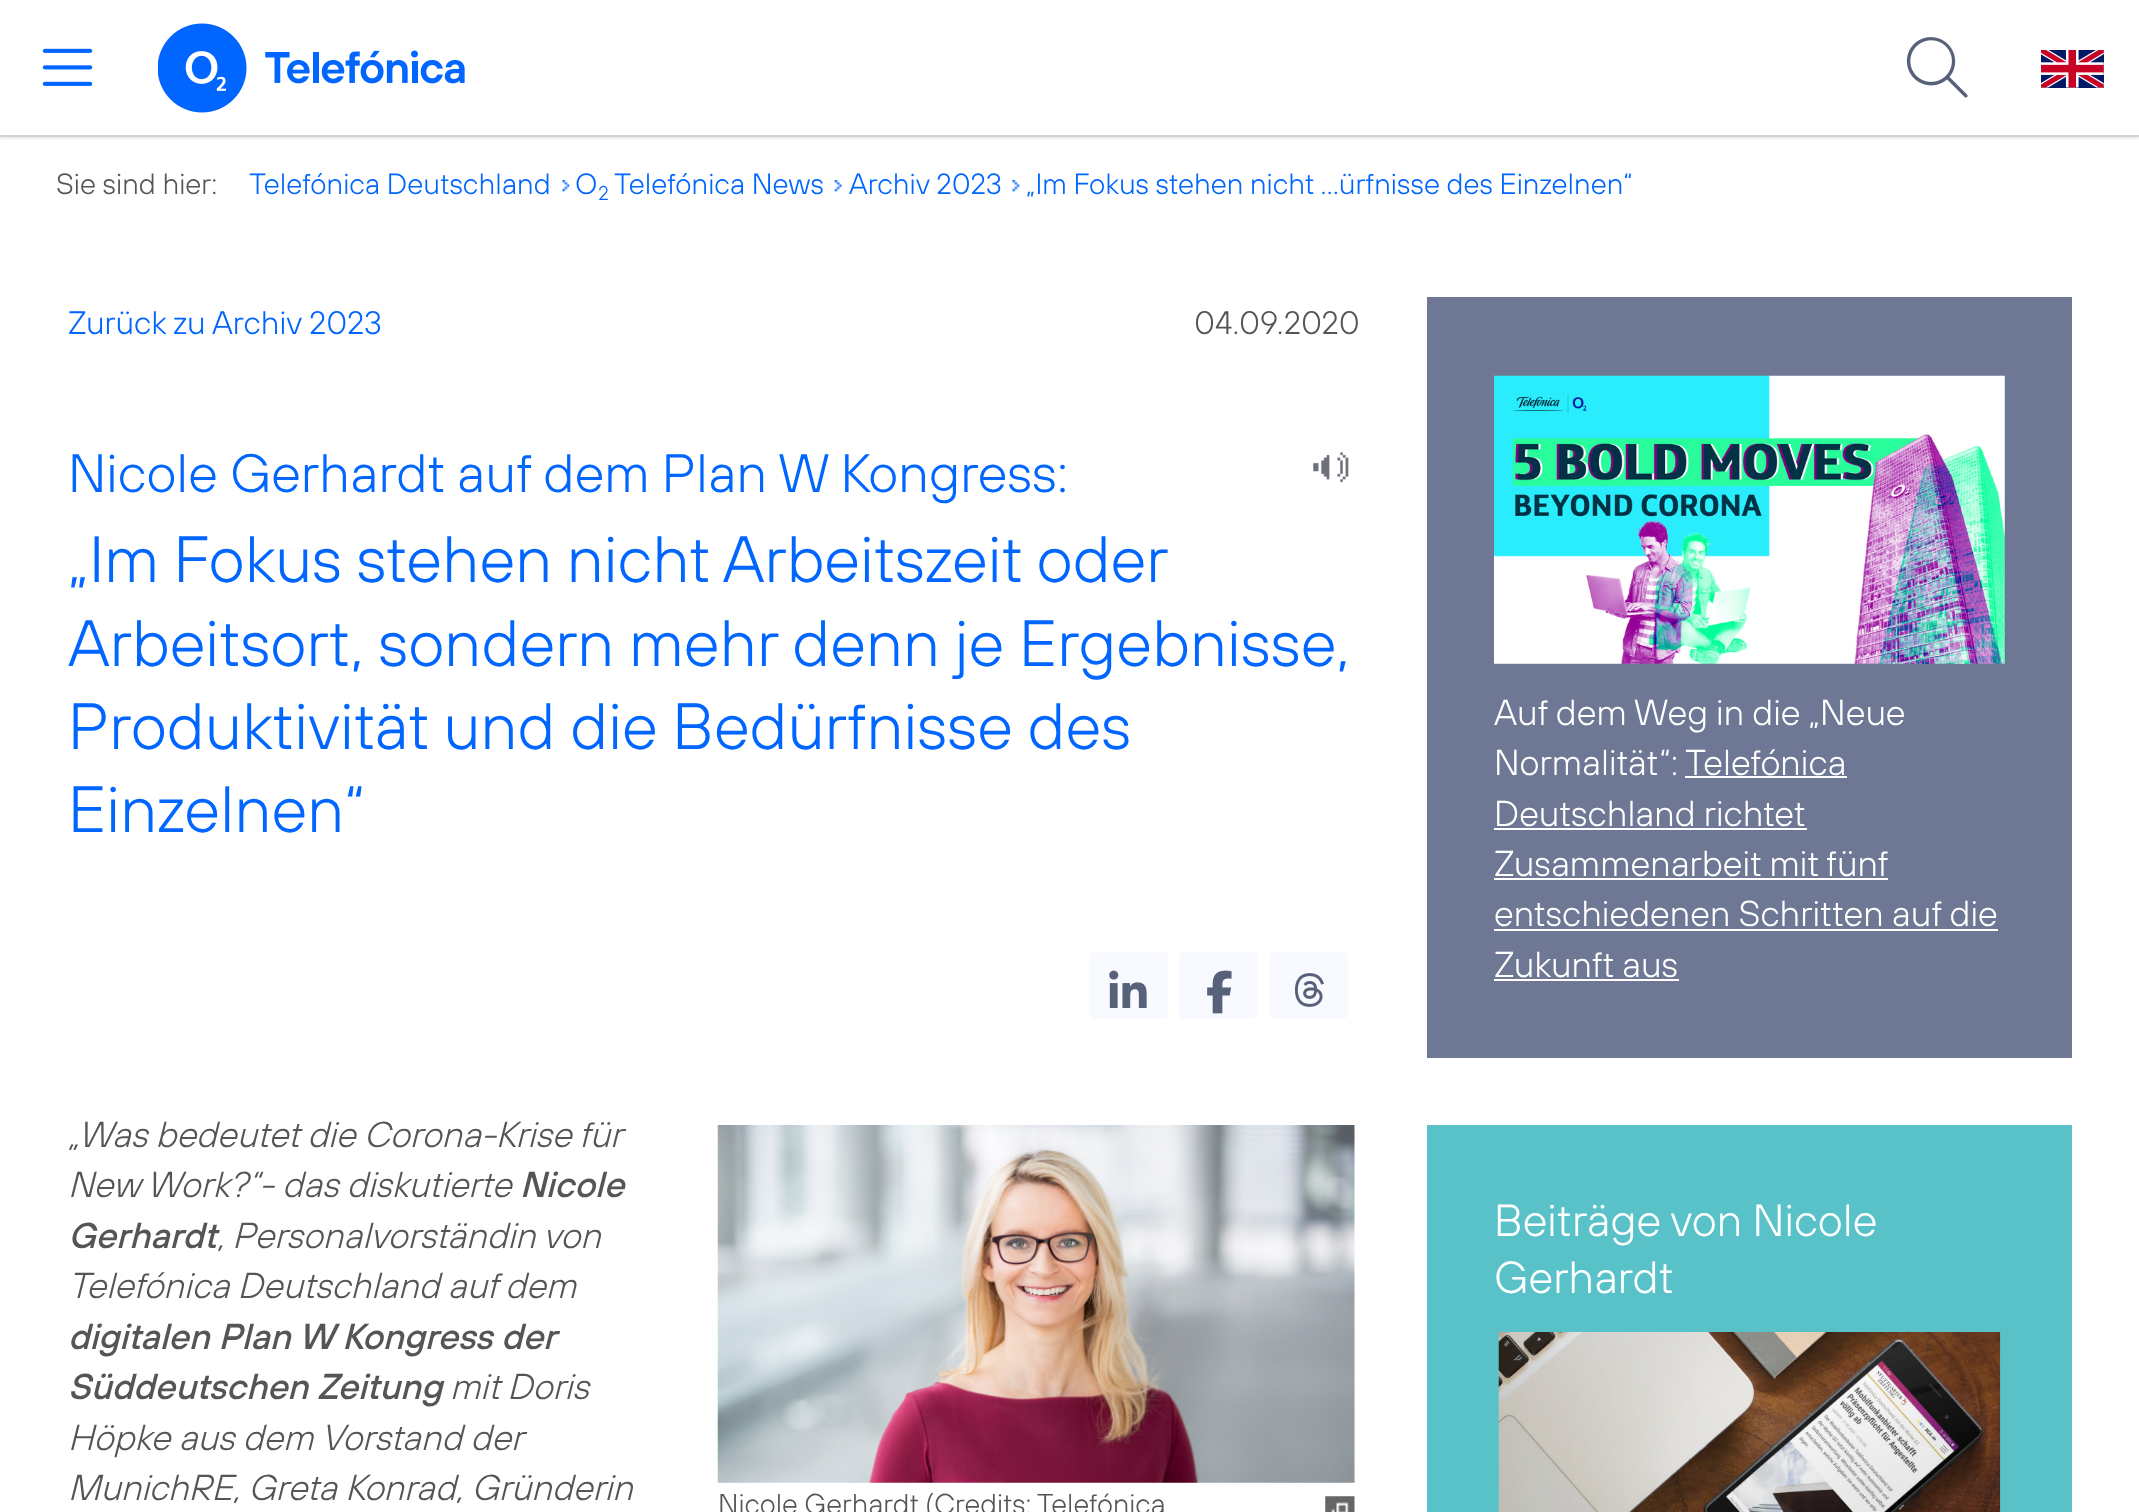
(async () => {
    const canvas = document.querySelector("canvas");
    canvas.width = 2139;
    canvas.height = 1512;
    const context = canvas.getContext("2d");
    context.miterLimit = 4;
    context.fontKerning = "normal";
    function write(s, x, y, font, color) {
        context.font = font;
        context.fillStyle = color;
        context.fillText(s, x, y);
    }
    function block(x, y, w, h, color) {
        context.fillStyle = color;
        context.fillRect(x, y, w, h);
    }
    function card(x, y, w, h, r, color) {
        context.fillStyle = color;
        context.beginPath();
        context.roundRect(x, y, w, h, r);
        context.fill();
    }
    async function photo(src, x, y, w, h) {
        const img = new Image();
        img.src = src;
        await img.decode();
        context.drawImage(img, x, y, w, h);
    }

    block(0, 0, 2139, 1512, "rgb(255, 255, 255)");
    context.save();
    context.beginPath();
    context.rect(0, 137, 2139, 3);
    context.clip();
    context.fillStyle = "rgba(0, 0, 0, 0.2)";
    context.filter = "blur(2px)";
    context.beginPath();
    context.rect(0, 0, 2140, 137);
    context.fill();
    context.filter = "none";
    context.restore();
    block(0, 135, 2139, 2, "rgb(211, 212, 211)");
    await photo("media/1.png", 42, 48, 51, 38);
    await photo("media/2.png", 158, 23, 307, 90);
    await photo("media/3.png", 1906, 37, 62, 61);
    await photo("media/4.png", 2041, 50, 63, 38);
    write("Sie sind hier:", 56, 194, "300 29.25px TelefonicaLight", "rgb(85, 85, 85)");
    write("Telefónica Deutschland", 249, 194, "300 29.25px TelefonicaLight", "rgb(0, 102, 255)");
    await photo("media/5.png", 562, 180, 8, 12);
    write("O", 575, 194, "300 29.25px TelefonicaLight", "rgb(0, 102, 255)");
    write("2", 598, 200, "300 20px TelefonicaLight", "rgb(0, 102, 255)");
    write("Telefónica News", 614, 194, "300 29.25px TelefonicaLight", "rgb(0, 102, 255)");
    await photo("media/6.png", 834, 180, 8, 12);
    write("Archiv 2023", 849, 194, "300 29.25px TelefonicaLight", "rgb(0, 102, 255)");
    await photo("media/5.png", 1012, 180, 8, 12);
    write("„Im Fokus stehen nicht ...ürfnisse des Einzelnen“", 1026, 194, "300 29.25px TelefonicaLight", "rgb(0, 102, 255)");
    write("Zurück zu Archiv 2023", 68, 334, "300 32.5px TelefonicaLight", "rgb(0, 102, 255)");
    write("04.09.2020", 1194, 334, "300 32.5px TelefonicaLight", "rgb(85, 85, 85)");
    await photo("media/7.png", 1313, 452, 36, 31);
    write("Nicole Gerhardt auf dem Plan W Kongress:", 68, 492, "300 54px TelefonicaLight", "rgb(0, 102, 255)");
    context.wordSpacing = "-0.25px";
    write("„Im Fokus stehen nicht Arbeitszeit oder", 68, 582, "300 65.25px TelefonicaLight", "rgb(0, 102, 255)");
    context.wordSpacing = "0px";
    write("Arbeitsort, sondern mehr denn je Ergebnisse,", 68, 666, "300 65.25px TelefonicaLight", "rgb(0, 102, 255)");
    write("Produktivität und die Bedürfnisse des", 68, 749, "300 65.25px TelefonicaLight", "rgb(0, 102, 255)");
    write("Einzelnen“", 68, 832, "300 65.25px TelefonicaLight", "rgb(0, 102, 255)");
    card(1089, 952, 79, 67, 5, "rgb(249, 250, 255)");
    await photo("media/8.png", 1109, 970, 38, 38);
    card(1179, 952, 79, 67, 5, "rgb(249, 250, 255)");
    await photo("media/9.png", 1207, 970, 25, 44);
    card(1269, 952, 79, 67, 5, "rgb(249, 250, 255)");
    await photo("media/10.png", 1295, 973, 29, 34);
    write("„Was bedeutet die Corona-Krise für", 68, 1147, "italic 300 36px TelefonicaLight", "rgb(85, 85, 85)");
    write("New Work?“- das diskutierte", 68, 1197, "italic 300 36px TelefonicaLight", "rgb(85, 85, 85)");
    write("Nicole", 520, 1197, "italic 500 36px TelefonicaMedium", "rgb(85, 85, 85)");
    write("Gerhardt", 68, 1248, "italic 500 36px TelefonicaMedium", "rgb(85, 85, 85)");
    write(", Personalvorständin von", 217, 1248, "italic 300 36px TelefonicaLight", "rgb(85, 85, 85)");
    write("Telefónica Deutschland auf dem", 68, 1298, "italic 300 36px TelefonicaLight", "rgb(85, 85, 85)");
    write("digitalen Plan W Kongress der", 68, 1349, "italic 500 36px TelefonicaMedium", "rgb(85, 85, 85)");
    write("Süddeutschen Zeitung", 68, 1399, "italic 500 36px TelefonicaMedium", "rgb(85, 85, 85)");
    write("mit Doris", 450, 1399, "italic 300 36px TelefonicaLight", "rgb(85, 85, 85)");
    write("Höpke aus dem Vorstand der", 68, 1450, "italic 300 36px TelefonicaLight", "rgb(85, 85, 85)");
    write("MunichRE, Greta Konrad, Gründerin", 68, 1500, "italic 300 36px TelefonicaLight", "rgb(85, 85, 85)");
    await photo("media/11.png", 717, 1125, 638, 358);
    write("Nicole Gerhardt (Credits: Telefónica", 718, 1514, "300 28.75px TelefonicaLight", "rgb(85, 85, 85)");
    await photo("media/12.png", 1325, 1496, 30, 16);
    block(1427, 297, 645, 761, "rgb(110, 120, 148)");
    await photo("media/13.png", 1494, 375, 511, 289);
    write("Auf dem Weg in die „Neue", 1494, 725, "300 36px TelefonicaLight", "rgb(255, 255, 255)");
    write("Normalität“:", 1494, 775, "300 36px TelefonicaLight", "rgb(255, 255, 255)");
    write("Telefónica", 1685, 775, "300 36px TelefonicaLight", "rgb(255, 255, 255)");
    block(1685, 776, 162, 2, "rgb(255, 255, 255)");
    write("Deutschland richtet", 1494, 826, "300 36px TelefonicaLight", "rgb(255, 255, 255)");
    block(1494, 828, 313, 2, "rgb(255, 255, 255)");
    write("Zusammenarbeit mit fünf", 1494, 876, "300 36px TelefonicaLight", "rgb(255, 255, 255)");
    block(1494, 878, 394, 2, "rgb(255, 255, 255)");
    write("entschiedenen Schritten auf die", 1494, 926, "300 36px TelefonicaLight", "rgb(255, 255, 255)");
    block(1494, 929, 504, 2, "rgb(255, 255, 255)");
    write("Zukunft aus", 1494, 977, "300 36px TelefonicaLight", "rgb(255, 255, 255)");
    block(1494, 979, 185, 2, "rgb(255, 255, 255)");
    block(1427, 1125, 645, 387, "rgb(89, 194, 201)");
    write("Beiträge von Nicole", 1494, 1236, "300 45px TelefonicaLight", "rgb(255, 255, 255)");
    write("Gerhardt", 1494, 1293, "300 45px TelefonicaLight", "rgb(255, 255, 255)");
    await photo("media/14.png", 1498, 1332, 503, 180);
})();
